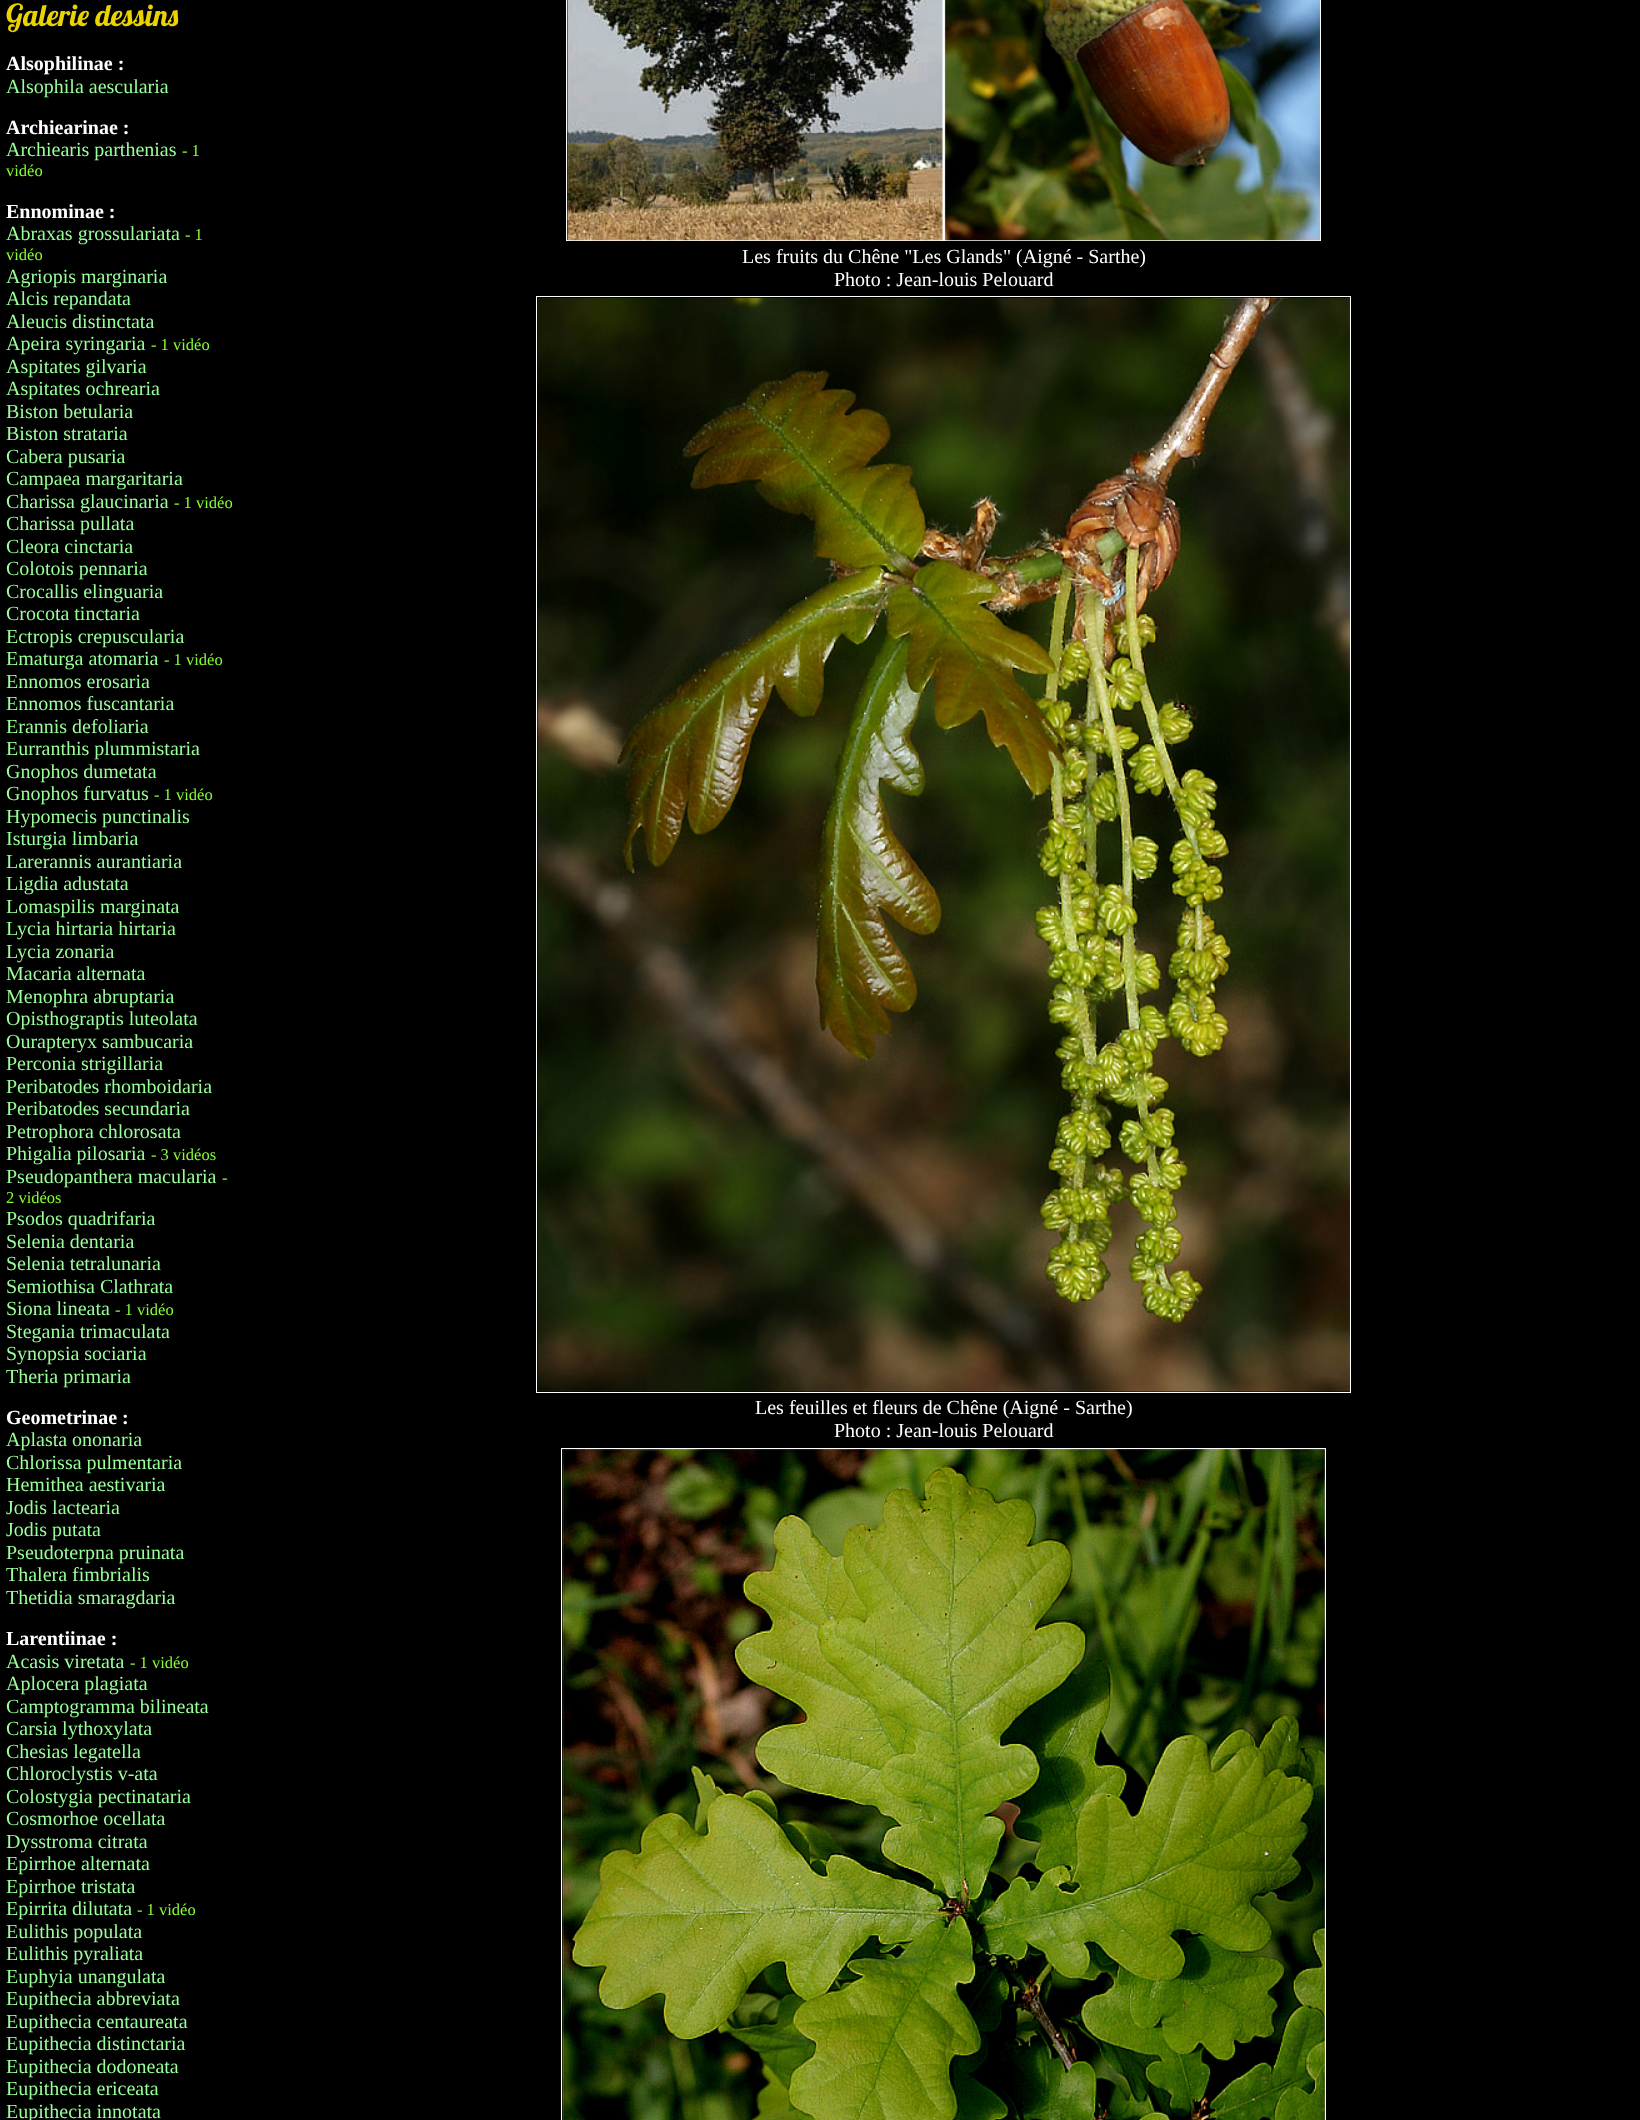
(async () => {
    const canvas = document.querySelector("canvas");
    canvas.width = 1640;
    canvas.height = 2120;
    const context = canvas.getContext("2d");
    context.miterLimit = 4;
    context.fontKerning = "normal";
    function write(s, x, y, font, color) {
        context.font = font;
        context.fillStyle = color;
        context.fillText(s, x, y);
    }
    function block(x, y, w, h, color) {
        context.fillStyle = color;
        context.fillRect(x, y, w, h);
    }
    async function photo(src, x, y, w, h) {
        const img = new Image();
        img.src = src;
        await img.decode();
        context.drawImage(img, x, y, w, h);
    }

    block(0, 0, 1640, 2120, "rgb(0, 0, 0)");
    write("Galerie dessins", 6, 26, "30px Lobster", "rgb(235, 211, 1)");
    write("Alsophilinae :", 6, 70, "bold 20px Liberation Serif", "rgb(255, 255, 255)");
    write("Alsophila aescularia", 6, 93, "20px Liberation Serif", "rgb(153, 255, 153)");
    write("Archiearinae :", 6, 134, "bold 20px Liberation Serif", "rgb(255, 255, 255)");
    write("Archiearis parthenias", 6, 156, "20px Liberation Serif", "rgb(153, 255, 153)");
    write("- 1", 182, 156, "16.5px Liberation Serif", "rgb(134, 255, 51)");
    write("vidéo", 6, 176, "16.5px Liberation Serif", "rgb(134, 255, 51)");
    write("Ennominae :", 6, 218, "bold 20px Liberation Serif", "rgb(255, 255, 255)");
    write("Abraxas grossulariata", 6, 240, "20px Liberation Serif", "rgb(153, 255, 153)");
    write("- 1", 185, 240, "16.5px Liberation Serif", "rgb(134, 255, 51)");
    write("vidéo", 6, 260, "16.5px Liberation Serif", "rgb(134, 255, 51)");
    write("Agriopis marginaria", 6, 283, "20px Liberation Serif", "rgb(153, 255, 153)");
    write("Alcis repandata", 6, 305, "20px Liberation Serif", "rgb(153, 255, 153)");
    write("Aleucis distinctata", 6, 328, "20px Liberation Serif", "rgb(153, 255, 153)");
    write("Apeira syringaria", 6, 350, "20px Liberation Serif", "rgb(153, 255, 153)");
    write("- 1 vidéo", 151, 350, "16.5px Liberation Serif", "rgb(134, 255, 51)");
    write("Aspitates gilvaria", 6, 373, "20px Liberation Serif", "rgb(153, 255, 153)");
    write("Aspitates ochrearia", 6, 395, "20px Liberation Serif", "rgb(153, 255, 153)");
    write("Biston betularia", 6, 418, "20px Liberation Serif", "rgb(153, 255, 153)");
    write("Biston strataria", 6, 440, "20px Liberation Serif", "rgb(153, 255, 153)");
    write("Cabera pusaria", 6, 463, "20px Liberation Serif", "rgb(153, 255, 153)");
    write("Campaea margaritaria", 6, 485, "20px Liberation Serif", "rgb(153, 255, 153)");
    write("Charissa glaucinaria", 6, 508, "20px Liberation Serif", "rgb(153, 255, 153)");
    write("- 1 vidéo", 174, 508, "16.5px Liberation Serif", "rgb(134, 255, 51)");
    write("Charissa pullata", 6, 530, "20px Liberation Serif", "rgb(153, 255, 153)");
    write("Cleora cinctaria", 6, 553, "20px Liberation Serif", "rgb(153, 255, 153)");
    write("Colotois pennaria", 6, 575, "20px Liberation Serif", "rgb(153, 255, 153)");
    write("Crocallis elinguaria", 6, 598, "20px Liberation Serif", "rgb(153, 255, 153)");
    write("Crocota tinctaria", 6, 620, "20px Liberation Serif", "rgb(153, 255, 153)");
    write("Ectropis crepuscularia", 6, 643, "20px Liberation Serif", "rgb(153, 255, 153)");
    write("Ematurga atomaria", 6, 665, "20px Liberation Serif", "rgb(153, 255, 153)");
    write("- 1 vidéo", 164, 665, "16.5px Liberation Serif", "rgb(134, 255, 51)");
    write("Ennomos erosaria", 6, 688, "20px Liberation Serif", "rgb(153, 255, 153)");
    write("Ennomos fuscantaria", 6, 710, "20px Liberation Serif", "rgb(153, 255, 153)");
    write("Erannis defoliaria", 6, 733, "20px Liberation Serif", "rgb(153, 255, 153)");
    write("Eurranthis plummistaria", 6, 755, "20px Liberation Serif", "rgb(153, 255, 153)");
    write("Gnophos dumetata", 6, 778, "20px Liberation Serif", "rgb(153, 255, 153)");
    write("Gnophos furvatus", 6, 800, "20px Liberation Serif", "rgb(153, 255, 153)");
    write("- 1 vidéo", 154, 800, "16.5px Liberation Serif", "rgb(134, 255, 51)");
    write("Hypomecis punctinalis", 6, 823, "20px Liberation Serif", "rgb(153, 255, 153)");
    write("Isturgia limbaria", 6, 845, "20px Liberation Serif", "rgb(153, 255, 153)");
    write("Larerannis aurantiaria", 6, 868, "20px Liberation Serif", "rgb(153, 255, 153)");
    write("Ligdia adustata", 6, 890, "20px Liberation Serif", "rgb(153, 255, 153)");
    write("Lomaspilis marginata", 6, 913, "20px Liberation Serif", "rgb(153, 255, 153)");
    write("Lycia hirtaria hirtaria", 6, 935, "20px Liberation Serif", "rgb(153, 255, 153)");
    write("Lycia zonaria", 6, 958, "20px Liberation Serif", "rgb(153, 255, 153)");
    write("Macaria alternata", 6, 980, "20px Liberation Serif", "rgb(153, 255, 153)");
    write("Menophra abruptaria", 6, 1003, "20px Liberation Serif", "rgb(153, 255, 153)");
    write("Opisthograptis luteolata", 6, 1025, "20px Liberation Serif", "rgb(153, 255, 153)");
    write("Ourapteryx sambucaria", 6, 1048, "20px Liberation Serif", "rgb(153, 255, 153)");
    write("Perconia strigillaria", 6, 1070, "20px Liberation Serif", "rgb(153, 255, 153)");
    write("Peribatodes rhomboidaria", 6, 1093, "20px Liberation Serif", "rgb(153, 255, 153)");
    write("Peribatodes secundaria", 6, 1115, "20px Liberation Serif", "rgb(153, 255, 153)");
    write("Petrophora chlorosata", 6, 1138, "20px Liberation Serif", "rgb(153, 255, 153)");
    write("Phigalia pilosaria", 6, 1160, "20px Liberation Serif", "rgb(153, 255, 153)");
    write("- 3 vidéos", 151, 1160, "16.5px Liberation Serif", "rgb(134, 255, 51)");
    write("Pseudopanthera macularia", 6, 1183, "20px Liberation Serif", "rgb(153, 255, 153)");
    write("-", 222, 1183, "16.5px Liberation Serif", "rgb(134, 255, 51)");
    write("2 vidéos", 6, 1203, "16.5px Liberation Serif", "rgb(134, 255, 51)");
    write("Psodos quadrifaria", 6, 1225, "20px Liberation Serif", "rgb(153, 255, 153)");
    write("Selenia dentaria", 6, 1248, "20px Liberation Serif", "rgb(153, 255, 153)");
    write("Selenia tetralunaria", 6, 1270, "20px Liberation Serif", "rgb(153, 255, 153)");
    write("Semiothisa Clathrata", 6, 1293, "20px Liberation Serif", "rgb(153, 255, 153)");
    write("Siona lineata", 6, 1315, "20px Liberation Serif", "rgb(153, 255, 153)");
    write("- 1 vidéo", 115, 1315, "16.5px Liberation Serif", "rgb(134, 255, 51)");
    write("Stegania trimaculata", 6, 1338, "20px Liberation Serif", "rgb(153, 255, 153)");
    write("Synopsia sociaria", 6, 1360, "20px Liberation Serif", "rgb(153, 255, 153)");
    write("Theria primaria", 6, 1383, "20px Liberation Serif", "rgb(153, 255, 153)");
    write("Geometrinae :", 6, 1424, "bold 20px Liberation Serif", "rgb(255, 255, 255)");
    write("Aplasta ononaria", 6, 1446, "20px Liberation Serif", "rgb(153, 255, 153)");
    write("Chlorissa pulmentaria", 6, 1469, "20px Liberation Serif", "rgb(153, 255, 153)");
    write("Hemithea aestivaria", 6, 1491, "20px Liberation Serif", "rgb(153, 255, 153)");
    write("Jodis lactearia", 6, 1514, "20px Liberation Serif", "rgb(153, 255, 153)");
    write("Jodis putata", 6, 1536, "20px Liberation Serif", "rgb(153, 255, 153)");
    write("Pseudoterpna pruinata", 6, 1559, "20px Liberation Serif", "rgb(153, 255, 153)");
    write("Thalera fimbrialis", 6, 1581, "20px Liberation Serif", "rgb(153, 255, 153)");
    write("Thetidia smaragdaria", 6, 1604, "20px Liberation Serif", "rgb(153, 255, 153)");
    write("Larentiinae :", 6, 1645, "bold 20px Liberation Serif", "rgb(255, 255, 255)");
    write("Acasis viretata", 6, 1668, "20px Liberation Serif", "rgb(153, 255, 153)");
    write("- 1 vidéo", 130, 1668, "16.5px Liberation Serif", "rgb(134, 255, 51)");
    write("Aplocera plagiata", 6, 1690, "20px Liberation Serif", "rgb(153, 255, 153)");
    write("Camptogramma bilineata", 6, 1713, "20px Liberation Serif", "rgb(153, 255, 153)");
    write("Carsia lythoxylata", 6, 1735, "20px Liberation Serif", "rgb(153, 255, 153)");
    write("Chesias legatella", 6, 1758, "20px Liberation Serif", "rgb(153, 255, 153)");
    write("Chloroclystis v-ata", 6, 1780, "20px Liberation Serif", "rgb(153, 255, 153)");
    write("Colostygia pectinataria", 6, 1803, "20px Liberation Serif", "rgb(153, 255, 153)");
    write("Cosmorhoe ocellata", 6, 1825, "20px Liberation Serif", "rgb(153, 255, 153)");
    write("Dysstroma citrata", 6, 1848, "20px Liberation Serif", "rgb(153, 255, 153)");
    write("Epirrhoe alternata", 6, 1870, "20px Liberation Serif", "rgb(153, 255, 153)");
    write("Epirrhoe tristata", 6, 1893, "20px Liberation Serif", "rgb(153, 255, 153)");
    write("Epirrita dilutata", 6, 1915, "20px Liberation Serif", "rgb(153, 255, 153)");
    write("- 1 vidéo", 137, 1915, "16.5px Liberation Serif", "rgb(134, 255, 51)");
    write("Eulithis populata", 6, 1938, "20px Liberation Serif", "rgb(153, 255, 153)");
    write("Eulithis pyraliata", 6, 1960, "20px Liberation Serif", "rgb(153, 255, 153)");
    write("Euphyia unangulata", 6, 1983, "20px Liberation Serif", "rgb(153, 255, 153)");
    write("Eupithecia abbreviata", 6, 2005, "20px Liberation Serif", "rgb(153, 255, 153)");
    write("Eupithecia centaureata", 6, 2028, "20px Liberation Serif", "rgb(153, 255, 153)");
    write("Eupithecia distinctaria", 6, 2050, "20px Liberation Serif", "rgb(153, 255, 153)");
    write("Eupithecia dodoneata", 6, 2073, "20px Liberation Serif", "rgb(153, 255, 153)");
    write("Eupithecia ericeata", 6, 2095, "20px Liberation Serif", "rgb(153, 255, 153)");
    write("Eupithecia innotata", 6, 2118, "20px Liberation Serif", "rgb(153, 255, 153)");
    context.strokeStyle = "rgb(255, 255, 255)";
    context.strokeRect(566.5, -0.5, 754, 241);
    await photo("media/1.png", 567, 0, 753, 241);
    write("Les fruits du Chêne \"Les Glands\" (Aigné - Sarthe)", 742, 263, "20px Liberation Serif", "rgb(255, 255, 255)");
    write("Photo : Jean-louis Pelouard", 834, 286, "20px Liberation Serif", "rgb(255, 255, 255)");
    context.strokeRect(536.5, 296.5, 814, 1096);
    await photo("media/2.png", 537, 297, 813, 1095);
    write("Les feuilles et fleurs de Chêne (Aigné - Sarthe)", 755, 1414, "20px Liberation Serif", "rgb(255, 255, 255)");
    write("Photo : Jean-louis Pelouard", 834, 1437, "20px Liberation Serif", "rgb(255, 255, 255)");
    context.strokeRect(561.5, 1448.5, 764, 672);
    await photo("media/3.png", 562, 1449, 763, 671);
})();
